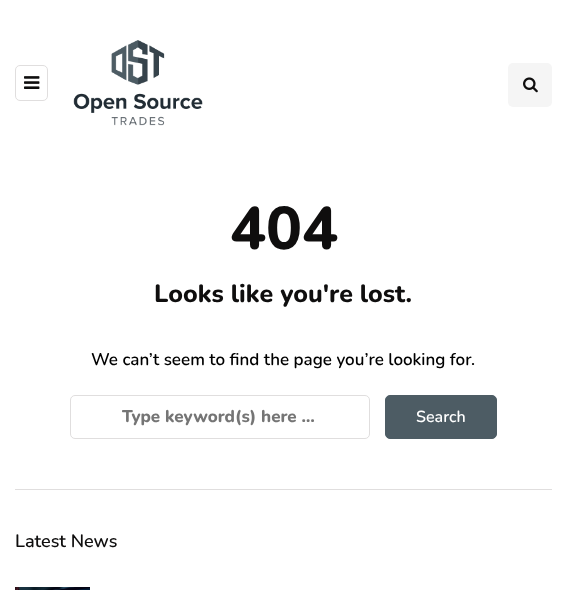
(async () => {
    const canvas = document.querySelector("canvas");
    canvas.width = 567;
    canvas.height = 590;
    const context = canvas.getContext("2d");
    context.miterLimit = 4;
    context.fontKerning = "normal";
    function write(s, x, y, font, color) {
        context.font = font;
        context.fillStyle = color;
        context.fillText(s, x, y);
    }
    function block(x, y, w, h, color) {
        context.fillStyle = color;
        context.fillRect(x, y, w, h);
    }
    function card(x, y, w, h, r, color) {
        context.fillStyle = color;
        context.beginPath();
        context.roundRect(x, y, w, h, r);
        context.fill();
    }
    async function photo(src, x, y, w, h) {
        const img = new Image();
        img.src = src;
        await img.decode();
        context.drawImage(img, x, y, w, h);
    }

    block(0, 0, 567, 590, "rgb(255, 255, 255)");
    context.beginPath();
    context.roundRect(15.5, 65.5, 32, 35, 4.5);
    context.strokeStyle = "rgb(224, 222, 222)";
    context.stroke();
    await photo("media/1.png", 24, 76, 16, 13);
    await photo("media/2.png", 73, 40, 130, 86);
    card(508, 63, 44, 44, 5, "rgb(245, 245, 245)");
    await photo("media/3.png", 523, 77, 15, 16);
    write("404", 230, 249, "800 60px Nunito", "rgb(15, 14, 14)");
    write("Looks like you're lost.", 154, 302, "800 25px Nunito", "rgb(15, 14, 14)");
    write("We can’t seem to find the page you’re looking for.", 91, 365, "600 17px Nunito", "rgb(0, 0, 0)");
    context.beginPath();
    context.roundRect(70.5, 395.5, 299, 43, 4.5);
    context.stroke();
    write("Type keyword(s) here …", 122, 422, "800 17px Nunito", "rgb(117, 117, 117)");
    context.fillStyle = "rgb(77, 92, 100)";
    context.beginPath();
    context.roundRect(385.5, 395.5, 111, 43, 4.5);
    context.fill();
    context.strokeStyle = "rgb(77, 92, 100)";
    context.stroke();
    write("Search", 416, 422, "600 16px Nunito", "rgb(255, 255, 255)");
    block(15, 489, 537, 1, "rgb(224, 222, 222)");
    write("Latest News", 15, 547, "600 18px Nunito", "rgb(15, 14, 14)");
    await photo("media/4.png", 15, 587, 75, 3);
})();
